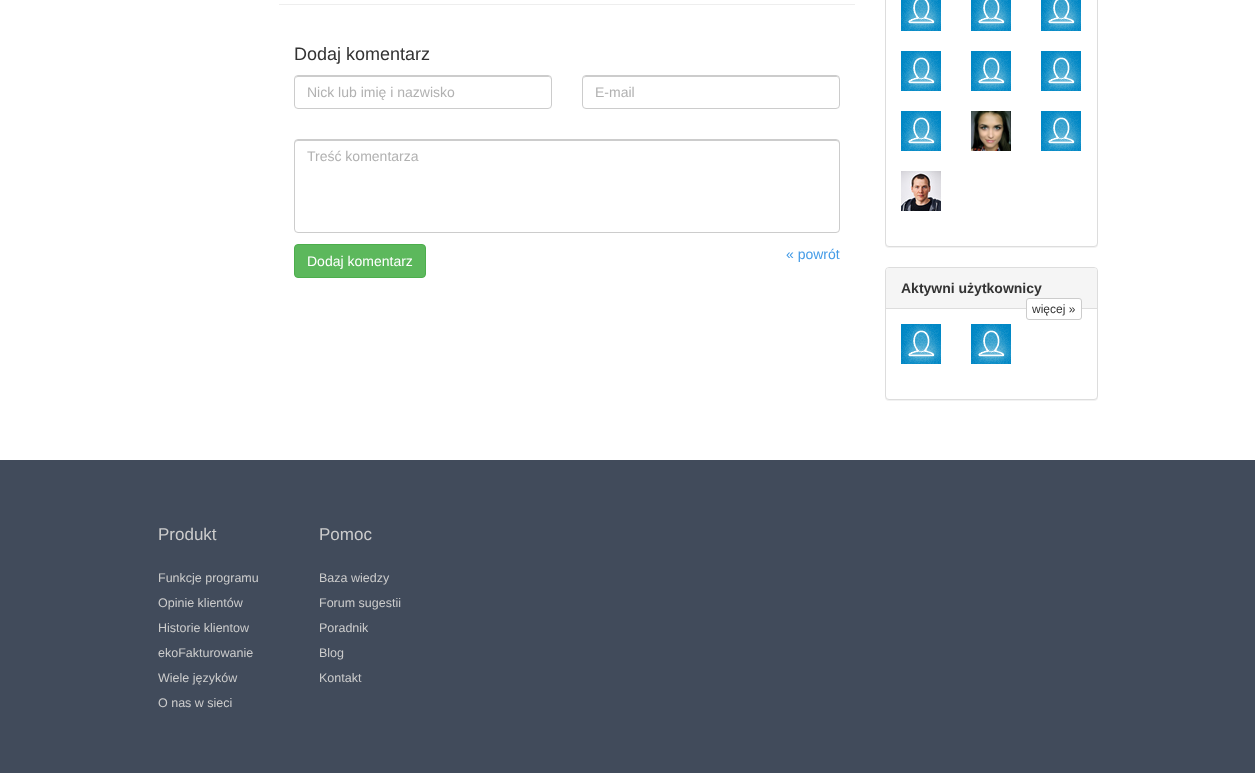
(async () => {
    const canvas = document.querySelector("canvas");
    canvas.width = 1255;
    canvas.height = 773;
    const context = canvas.getContext("2d");
    context.miterLimit = 4;
    context.fontKerning = "normal";
    function write(s, x, y, font, color) {
        context.font = font;
        context.fillStyle = color;
        context.fillText(s, x, y);
    }
    function block(x, y, w, h, color) {
        context.fillStyle = color;
        context.fillRect(x, y, w, h);
    }
    async function photo(src, x, y, w, h) {
        const img = new Image();
        img.src = src;
        await img.decode();
        context.drawImage(img, x, y, w, h);
    }

    block(0, 0, 1255, 773, "rgb(255, 255, 255)");
    block(279, 4, 576, 1, "rgb(238, 238, 238)");
    write("Dodaj komentarz", 294, 60, "18px Liberation Sans", "rgb(51, 51, 51)");
    context.fillStyle = "rgb(204, 204, 204)";
    context.beginPath();
    context.moveTo(298, 77);
    context.lineTo(549, 77);
    context.lineTo(551, 78);
    context.lineTo(551, 80);
    context.bezierCurveTo(551, 78, 550, 76, 548, 76);
    context.lineTo(298, 76);
    context.bezierCurveTo(296, 76, 295, 78, 295, 80);
    context.bezierCurveTo(295, 78, 296, 77, 298, 77);
    context.closePath();
    context.fill();
    context.beginPath();
    context.roundRect(294.5, 75.5, 257, 33, 3.5);
    context.strokeStyle = "rgb(204, 204, 204)";
    context.stroke();
    write("Nick lub imię i nazwisko", 307, 97, "14px Liberation Sans", "rgb(177, 177, 177)");
    context.fillStyle = "rgb(204, 204, 204)";
    context.beginPath();
    context.moveTo(586, 77);
    context.lineTo(837, 77);
    context.lineTo(839, 78);
    context.lineTo(839, 80);
    context.bezierCurveTo(839, 78, 838, 76, 836, 76);
    context.lineTo(586, 76);
    context.bezierCurveTo(584, 76, 583, 78, 583, 80);
    context.bezierCurveTo(583, 78, 584, 77, 586, 77);
    context.closePath();
    context.fill();
    context.beginPath();
    context.roundRect(582.5, 75.5, 257, 33, 3.5);
    context.stroke();
    write("E-mail", 595, 97, "14px Liberation Sans", "rgb(177, 177, 177)");
    context.fillStyle = "rgb(204, 204, 204)";
    context.beginPath();
    context.moveTo(298, 141);
    context.lineTo(836, 141);
    context.bezierCurveTo(838, 141, 839, 142, 839, 144);
    context.lineTo(839, 143);
    context.bezierCurveTo(839, 141, 838, 140, 836, 140);
    context.lineTo(298, 140);
    context.bezierCurveTo(296, 140, 295, 141, 295, 143);
    context.lineTo(295, 144);
    context.bezierCurveTo(295, 142, 296, 141, 298, 141);
    context.closePath();
    context.fill();
    context.beginPath();
    context.roundRect(294.5, 139.5, 545, 93, 3.5);
    context.stroke();
    write("Treść komentarza", 307, 161, "14px Liberation Sans", "rgb(177, 177, 177)");
    context.fillStyle = "rgb(92, 184, 92)";
    context.beginPath();
    context.roundRect(294.5, 244.5, 131, 33, 3.5);
    context.fill();
    context.strokeStyle = "rgb(76, 174, 76)";
    context.stroke();
    write("Dodaj komentarz", 307, 266, "14px Liberation Sans", "rgb(255, 255, 255)");
    write("« powrót", 786, 259, "14px Liberation Sans", "rgb(69, 156, 231)");
    context.fillStyle = "rgba(0, 0, 0, 0.05)";
    context.filter = "blur(0.5px)";
    context.beginPath();
    context.roundRect(885, -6, 213, 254, 4);
    context.fill();
    context.filter = "none";
    context.fillStyle = "rgb(255, 255, 255)";
    context.beginPath();
    context.roundRect(885.5, -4.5, 212, 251, 3.5);
    context.fill();
    context.strokeStyle = "rgb(221, 221, 221)";
    context.stroke();
    await photo("media/1.png", 901, 0, 40, 31);
    await photo("media/1.png", 971, 0, 40, 31);
    await photo("media/1.png", 1041, 0, 40, 31);
    await photo("media/2.png", 901, 51, 40, 40);
    await photo("media/2.png", 971, 51, 40, 40);
    await photo("media/2.png", 1041, 51, 40, 40);
    await photo("media/2.png", 901, 111, 40, 40);
    await photo("media/3.png", 971, 111, 40, 40);
    await photo("media/2.png", 1041, 111, 40, 40);
    await photo("media/4.png", 901, 171, 40, 40);
    context.fillStyle = "rgba(0, 0, 0, 0.05)";
    context.filter = "blur(0.5px)";
    context.beginPath();
    context.roundRect(885, 268, 213, 133, 4);
    context.fill();
    context.filter = "none";
    context.fillStyle = "rgb(255, 255, 255)";
    context.beginPath();
    context.roundRect(885.5, 267.5, 212, 132, 3.5);
    context.fill();
    context.stroke();
    context.fillStyle = "rgb(245, 245, 245)";
    context.beginPath();
    context.roundRect(886, 268, 211, 41, [3, 3, 0, 0]);
    context.fill();
    block(886, 308, 211, 1, "rgb(221, 221, 221)");
    write("Aktywni użytkownicy", 901, 293, "bold 14px Liberation Sans", "rgb(51, 51, 51)");
    context.fillStyle = "rgb(255, 255, 255)";
    context.beginPath();
    context.roundRect(1026.5, 298.5, 55, 21, 2.5);
    context.fill();
    context.strokeStyle = "rgb(204, 204, 204)";
    context.stroke();
    write("więcej »", 1032, 313, "12px Liberation Sans", "rgb(51, 51, 51)");
    await photo("media/2.png", 901, 324, 40, 40);
    await photo("media/2.png", 971, 324, 40, 40);
    block(0, 460, 1255, 313, "rgb(65, 75, 91)");
    write("Produkt", 158, 540, "17px Liberation Sans", "rgb(204, 204, 204)");
    write("Funkcje programu", 158, 582, "12.5px Liberation Sans", "rgb(204, 204, 204)");
    write("Opinie klientów", 158, 607, "12.5px Liberation Sans", "rgb(204, 204, 204)");
    write("Historie klientow", 158, 632, "12.5px Liberation Sans", "rgb(204, 204, 204)");
    write("ekoFakturowanie", 158, 657, "12.5px Liberation Sans", "rgb(204, 204, 204)");
    write("Wiele języków", 158, 682, "12.5px Liberation Sans", "rgb(204, 204, 204)");
    write("O nas w sieci", 158, 707, "12.5px Liberation Sans", "rgb(204, 204, 204)");
    write("Pomoc", 319, 540, "17px Liberation Sans", "rgb(204, 204, 204)");
    write("Baza wiedzy", 319, 582, "12.5px Liberation Sans", "rgb(204, 204, 204)");
    write("Forum sugestii", 319, 607, "12.5px Liberation Sans", "rgb(204, 204, 204)");
    write("Poradnik", 319, 632, "12.5px Liberation Sans", "rgb(204, 204, 204)");
    write("Blog", 319, 657, "12.5px Liberation Sans", "rgb(204, 204, 204)");
    write("Kontakt", 319, 682, "12.5px Liberation Sans", "rgb(204, 204, 204)");
})();
